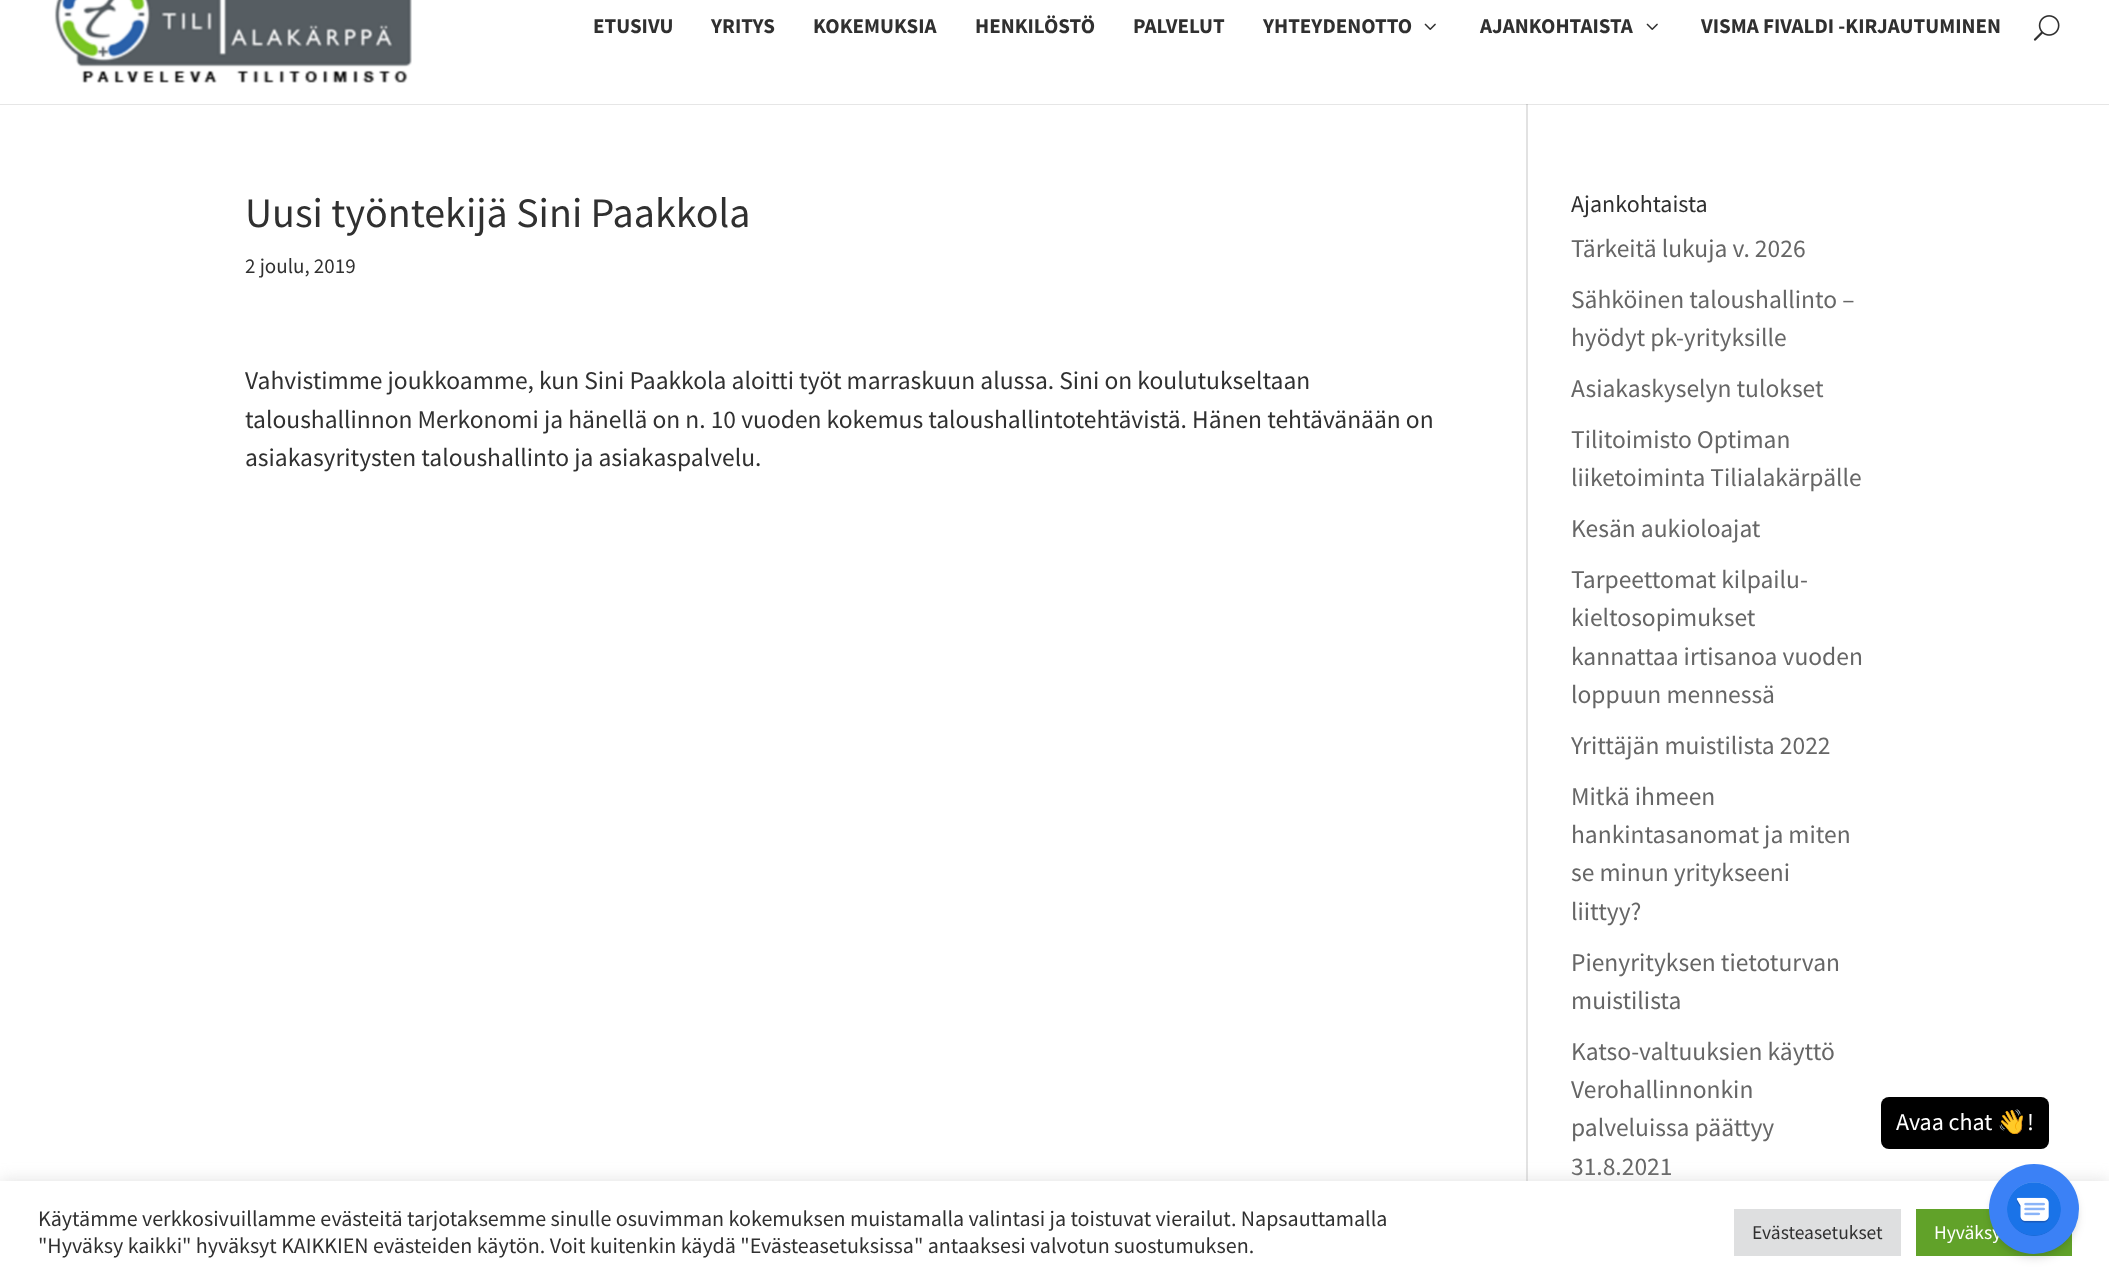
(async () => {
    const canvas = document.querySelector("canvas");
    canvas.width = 2109;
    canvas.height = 1284;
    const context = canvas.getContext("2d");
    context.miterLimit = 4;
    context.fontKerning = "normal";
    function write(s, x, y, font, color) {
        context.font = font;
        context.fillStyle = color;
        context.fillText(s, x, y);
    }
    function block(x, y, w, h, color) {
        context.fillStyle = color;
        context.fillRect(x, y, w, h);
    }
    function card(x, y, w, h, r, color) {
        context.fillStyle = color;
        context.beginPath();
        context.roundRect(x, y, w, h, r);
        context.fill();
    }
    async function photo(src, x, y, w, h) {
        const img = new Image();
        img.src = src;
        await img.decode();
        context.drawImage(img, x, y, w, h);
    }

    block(0, 0, 2109, 1284, "rgb(255, 255, 255)");
    block(0, 104, 2109, 1, "rgb(230, 230, 230)");
    await photo("media/1.png", 54, 0, 358, 83);
    write("ETUSIVU", 593, 33, "bold 21px Source Sans Pro", "rgb(48, 48, 48)");
    write("YRITYS", 711, 33, "bold 21px Source Sans Pro", "rgb(48, 48, 48)");
    write("KOKEMUKSIA", 813, 33, "bold 21px Source Sans Pro", "rgb(48, 48, 48)");
    write("HENKILÖSTÖ", 975, 33, "bold 21px Source Sans Pro", "rgb(48, 48, 48)");
    write("PALVELUT", 1133, 33, "bold 21px Source Sans Pro", "rgb(48, 48, 48)");
    write("YHTEYDENOTTO", 1263, 33, "bold 21px Source Sans Pro", "rgb(48, 48, 48)");
    await photo("media/2.png", 1424, 23, 12, 7);
    write("AJANKOHTAISTA", 1480, 33, "bold 21px Source Sans Pro", "rgb(48, 48, 48)");
    await photo("media/2.png", 1646, 23, 12, 7);
    write("VISMA FIVALDI -KIRJAUTUMINEN", 1701, 33, "bold 21px Source Sans Pro", "rgb(48, 48, 48)");
    await photo("media/3.png", 2033, 15, 27, 26);
    block(1526, 104, 2, 1077, "rgb(226, 226, 226)");
    block(1526, 104, 2, 1, "rgb(203, 203, 203)");
    write("Uusi työntekijä Sini Paakkola", 245, 227, "42px Source Sans Pro", "rgb(48, 48, 48)");
    write("2 joulu, 2019", 245, 273, "21px Source Sans Pro", "rgb(48, 48, 48)");
    write("Vahvistimme joukkoamme, kun Sini Paakkola aloitti työt marraskuun alussa. Sini on koulutukseltaan", 245, 389, "25.5px Source Sans Pro", "rgb(48, 48, 48)");
    write("taloushallinnon Merkonomi ja hänellä on n. 10 vuoden kokemus taloushallintotehtävistä. Hänen tehtävänään on", 245, 428, "25.5px Source Sans Pro", "rgb(48, 48, 48)");
    write("asiakasyritysten taloushallinto ja asiakaspalvelu.", 245, 466, "25.5px Source Sans Pro", "rgb(48, 48, 48)");
    write("Ajankohtaista", 1571, 212, "24px Source Sans Pro", "rgb(48, 48, 48)");
    write("Tärkeitä lukuja v. 2026", 1571, 257, "25.5px Source Sans Pro", "rgb(102, 102, 102)");
    write("Sähköinen taloushallinto –", 1571, 308, "25.5px Source Sans Pro", "rgb(102, 102, 102)");
    write("hyödyt pk-yrityksille", 1571, 346, "25.5px Source Sans Pro", "rgb(102, 102, 102)");
    write("Asiakaskyselyn tulokset", 1571, 397, "25.5px Source Sans Pro", "rgb(102, 102, 102)");
    write("Tilitoimisto Optiman", 1571, 448, "25.5px Source Sans Pro", "rgb(102, 102, 102)");
    write("liiketoiminta Tilialakärpälle", 1571, 486, "25.5px Source Sans Pro", "rgb(102, 102, 102)");
    write("Kesän aukioloajat", 1571, 537, "25.5px Source Sans Pro", "rgb(102, 102, 102)");
    write("Tarpeettomat kilpailu-", 1571, 588, "25.5px Source Sans Pro", "rgb(102, 102, 102)");
    write("kieltosopimukset", 1571, 626, "25.5px Source Sans Pro", "rgb(102, 102, 102)");
    write("kannattaa irtisanoa vuoden", 1571, 665, "25.5px Source Sans Pro", "rgb(102, 102, 102)");
    write("loppuun mennessä", 1571, 703, "25.5px Source Sans Pro", "rgb(102, 102, 102)");
    write("Yrittäjän muistilista 2022", 1571, 754, "25.5px Source Sans Pro", "rgb(102, 102, 102)");
    write("Mitkä ihmeen", 1571, 805, "25.5px Source Sans Pro", "rgb(102, 102, 102)");
    write("hankintasanomat ja miten", 1571, 843, "25.5px Source Sans Pro", "rgb(102, 102, 102)");
    write("se minun yritykseeni", 1571, 881, "25.5px Source Sans Pro", "rgb(102, 102, 102)");
    write("liittyy?", 1571, 920, "25.5px Source Sans Pro", "rgb(102, 102, 102)");
    write("Pienyrityksen tietoturvan", 1571, 971, "25.5px Source Sans Pro", "rgb(102, 102, 102)");
    write("muistilista", 1571, 1009, "25.5px Source Sans Pro", "rgb(102, 102, 102)");
    write("Katso-valtuuksien käyttö", 1571, 1060, "25.5px Source Sans Pro", "rgb(102, 102, 102)");
    write("Verohallinnonkin", 1571, 1098, "25.5px Source Sans Pro", "rgb(102, 102, 102)");
    write("palveluissa päättyy", 1571, 1136, "25.5px Source Sans Pro", "rgb(102, 102, 102)");
    write("31.8.2021", 1571, 1175, "25.5px Source Sans Pro", "rgb(102, 102, 102)");
    card(1881, 1097, 168, 52, 8, "rgb(0, 0, 0)");
    write("Avaa chat", 1896, 1130, "24px Source Sans Pro", "rgb(255, 255, 255)");
    write("👋", 1997, 1130, "24px Noto Color Emoji", "rgb(255, 255, 255)");
    write("!", 2027, 1130, "24px Source Sans Pro", "rgb(255, 255, 255)");
    context.fillStyle = "rgba(172, 171, 171, 0.3)";
    context.filter = "blur(7.5px)";
    context.beginPath();
    context.rect(0, 1179, 2109, 104);
    context.fill();
    context.filter = "none";
    block(0, 1181, 2109, 103, "rgb(255, 255, 255)");
    block(1916, 1209, 156, 47, "rgb(97, 162, 41)");
    context.fillStyle = "rgba(0, 0, 0, 0.1)";
    context.filter = "blur(3px)";
    context.beginPath();
    context.roundRect(1992, 1170, 84, 84, 42);
    context.fill();
    context.filter = "none";
    context.filter = "blur(4.5px)";
    context.beginPath();
    context.roundRect(1991, 1172, 87, 87, 43.5);
    context.fill();
    context.filter = "none";
    write("Hyväksy", 1934, 1239, "19.5px Source Sans Pro", "rgb(255, 255, 255)");
    context.fillStyle = "rgb(59, 129, 246)";
    context.beginPath();
    context.arc(2034, 1209, 45, 0, Math.PI * 2);
    context.fill();
    await photo("media/4.png", 2007, 1182, 54, 54);
    write("Käytämme verkkosivuillamme evästeitä tarjotaksemme sinulle osuvimman kokemuksen muistamalla valintasi ja toistuvat vierailut. Napsauttamalla", 38, 1226, "22px Source Sans Pro", "rgb(48, 48, 48)");
    write("\"Hyväksy kaikki\" hyväksyt KAIKKIEN evästeiden käytön. Voit kuitenkin käydä \"Evästeasetuksissa\" antaaksesi valvotun suostumuksen.", 38, 1253, "22px Source Sans Pro", "rgb(48, 48, 48)");
    block(1734, 1209, 167, 47, "rgb(222, 223, 224)");
    write("Evästeasetukset", 1752, 1239, "19.5px Source Sans Pro", "rgb(48, 48, 48)");
})();
